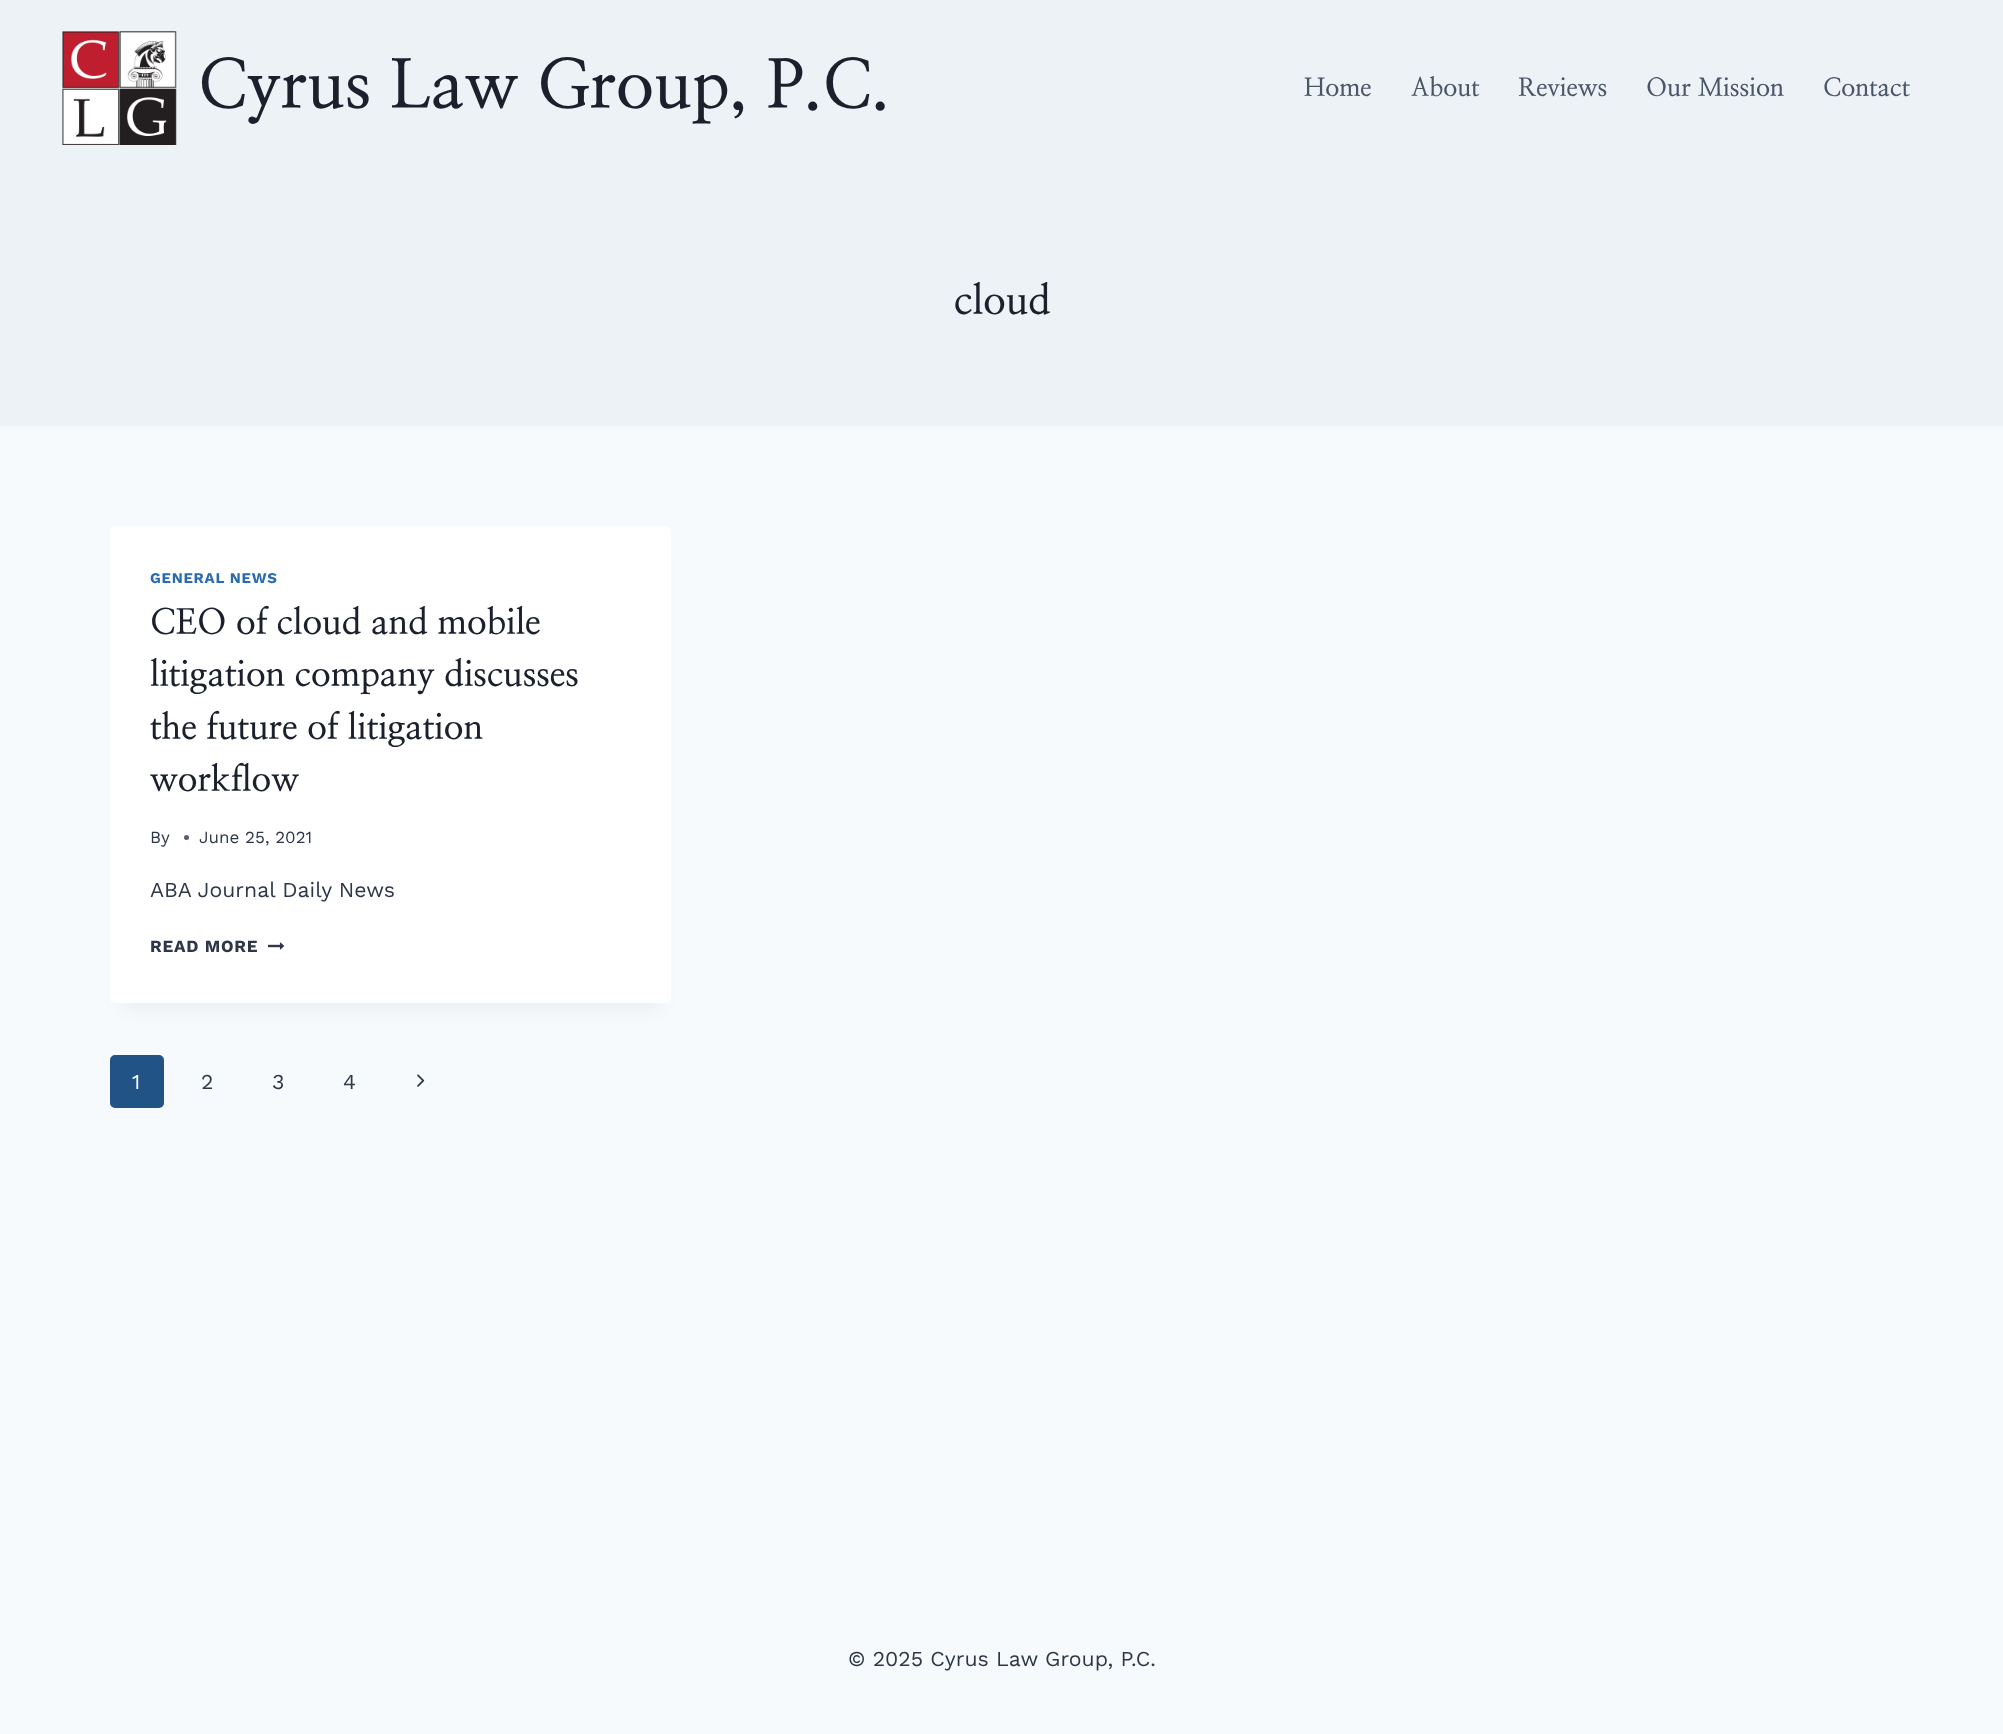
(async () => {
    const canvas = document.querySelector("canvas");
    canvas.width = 2003;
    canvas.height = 1734;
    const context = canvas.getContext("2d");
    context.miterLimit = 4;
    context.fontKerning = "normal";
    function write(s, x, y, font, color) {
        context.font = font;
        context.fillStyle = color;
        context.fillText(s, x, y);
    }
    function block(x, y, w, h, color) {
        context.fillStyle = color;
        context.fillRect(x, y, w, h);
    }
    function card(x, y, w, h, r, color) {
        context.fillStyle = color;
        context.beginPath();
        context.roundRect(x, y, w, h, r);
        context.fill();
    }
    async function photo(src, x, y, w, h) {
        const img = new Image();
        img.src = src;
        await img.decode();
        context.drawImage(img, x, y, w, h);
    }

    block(0, 0, 2003, 1734, "rgb(247, 250, 252)");
    block(0, 0, 2003, 426, "rgb(237, 242, 247)");
    await photo("media/1.png", 62, 31, 115, 114);
    write("Cyrus Law Group, P.C.", 198, 108, "bold 67.5px NanumMyeongjo", "rgb(26, 32, 44)");
    write("Home", 1304, 96, "bold 25px NanumMyeongjo", "rgb(74, 85, 104)");
    write("About", 1411, 96, "bold 25px NanumMyeongjo", "rgb(74, 85, 104)");
    write("Reviews", 1518, 96, "bold 25px NanumMyeongjo", "rgb(74, 85, 104)");
    write("Our Mission", 1646, 96, "bold 25px NanumMyeongjo", "rgb(74, 85, 104)");
    write("Contact", 1823, 96, "bold 25px NanumMyeongjo", "rgb(74, 85, 104)");
    write("cloud", 954, 314, "bold 40px NanumMyeongjo", "rgb(26, 32, 44)");
    context.fillStyle = "rgba(0, 0, 0, 0.05)";
    context.filter = "blur(9.5px)";
    context.beginPath();
    context.rect(123, 558, 536, 451);
    context.fill();
    context.filter = "none";
    card(110, 526, 561, 477, 5, "rgb(255, 255, 255)");
    context.letterSpacing = "0.75px";
    write("GENERAL NEWS", 150, 583, "bold 14.9px Work Sans", "rgb(43, 108, 176)");
    context.letterSpacing = "0px";
    write("CEO of cloud and mobile", 150, 634, "bold 35px NanumMyeongjo", "rgb(26, 32, 44)");
    write("litigation company discusses", 150, 686, "bold 35px NanumMyeongjo", "rgb(26, 32, 44)");
    write("the future of litigation", 150, 739, "bold 35px NanumMyeongjo", "rgb(26, 32, 44)");
    write("workflow", 150, 791, "bold 35px NanumMyeongjo", "rgb(26, 32, 44)");
    write("By", 150, 843, "17px Work Sans", "rgb(45, 55, 72)");
    context.fillStyle = "rgb(87, 95, 109)";
    context.beginPath();
    context.arc(186.5, 837.5, 2.5, 0, Math.PI * 2);
    context.fill();
    write("June 25, 2021", 199, 843, "17px Work Sans", "rgb(45, 55, 72)");
    write("ABA Journal Daily News", 150, 897, "21.25px Work Sans", "rgb(45, 55, 72)");
    context.letterSpacing = "0.75px";
    write("READ MORE", 150, 952, "bold 17px Work Sans", "rgb(45, 55, 72)");
    await photo("media/2.png", 268, 942, 17, 8);
    context.fillStyle = "rgb(33, 83, 135)";
    context.beginPath();
    context.roundRect(111.5, 1056.5, 51, 50, 3.5);
    context.fill();
    context.strokeStyle = "rgb(33, 83, 135)";
    context.lineWidth = 3;
    context.stroke();
    context.letterSpacing = "0px";
    write("1", 132, 1089, "21.25px Work Sans", "rgb(255, 255, 255)");
    write("2", 201, 1089, "21.25px Work Sans", "rgb(45, 55, 72)");
    write("3", 272, 1089, "21.25px Work Sans", "rgb(45, 55, 72)");
    write("4", 343, 1089, "21.25px Work Sans", "rgb(45, 55, 72)");
    await photo("media/3.png", 417, 1074, 8, 13);
    write("© 2025 Cyrus Law Group, P.C.", 848, 1666, "21.25px Work Sans", "rgb(45, 55, 72)");
})();
